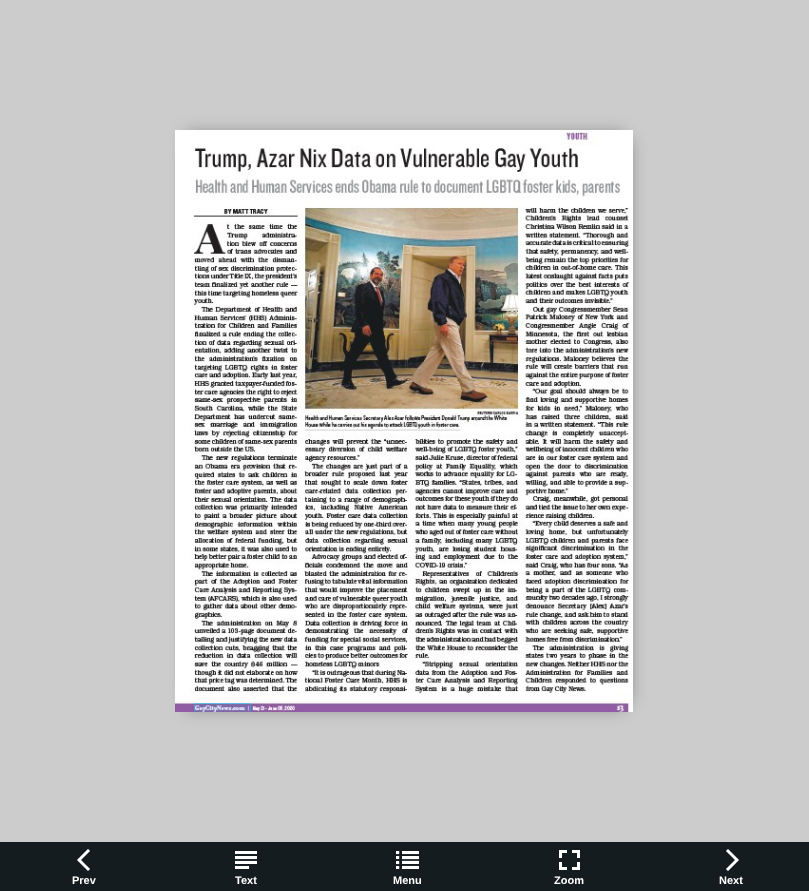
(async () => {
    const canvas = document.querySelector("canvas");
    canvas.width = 809;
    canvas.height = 891;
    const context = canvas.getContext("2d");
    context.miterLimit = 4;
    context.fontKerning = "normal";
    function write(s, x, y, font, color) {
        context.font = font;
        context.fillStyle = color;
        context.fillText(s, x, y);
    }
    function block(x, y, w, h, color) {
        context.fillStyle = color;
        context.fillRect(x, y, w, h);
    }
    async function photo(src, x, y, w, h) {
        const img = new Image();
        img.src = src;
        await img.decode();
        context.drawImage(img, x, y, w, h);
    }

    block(0, 0, 809, 891, "rgb(204, 204, 204)");
    context.fillStyle = "rgba(0, 0, 0, 0.2)";
    context.filter = "blur(7.5px)";
    context.beginPath();
    context.rect(195, 140, 438, 562);
    context.fill();
    context.filter = "none";
    context.filter = "blur(7.5px)";
    context.beginPath();
    context.rect(185, 130, 438, 562);
    context.fill();
    context.filter = "none";
    context.filter = "blur(7.5px)";
    context.beginPath();
    context.rect(185, 150, 438, 562);
    context.fill();
    context.filter = "none";
    await photo("media/1.png", 175, 130, 458, 582);
    context.save();
    context.beginPath();
    context.rect(175, 130, 458, 582);
    context.clip();
    context.strokeStyle = "rgba(0, 204, 255, 0.5)";
    context.strokeRect(194.5, 703.5, 56, 10);
    context.restore();
    block(195, 704, 55, 8, "rgba(0, 204, 255, 0.1)");
    block(0, 842, 809, 49, "rgb(21, 28, 32)");
    await photo("media/2.png", 77, 849, 13, 22);
    write("Prev", 72, 884, "bold 11px Liberation Sans", "rgb(255, 255, 255)");
    await photo("media/3.png", 235, 851, 22, 18);
    write("Text", 235, 884, "bold 11px Liberation Sans", "rgb(255, 255, 255)");
    await photo("media/4.png", 396, 851, 23, 18);
    write("Menu", 393, 884, "bold 11px Liberation Sans", "rgb(255, 255, 255)");
    await photo("media/5.png", 559, 850, 21, 20);
    write("Zoom", 554, 884, "bold 11px Liberation Sans", "rgb(255, 255, 255)");
    await photo("media/6.png", 726, 849, 13, 22);
    write("Next", 719, 884, "bold 11px Liberation Sans", "rgb(255, 255, 255)");
})();
